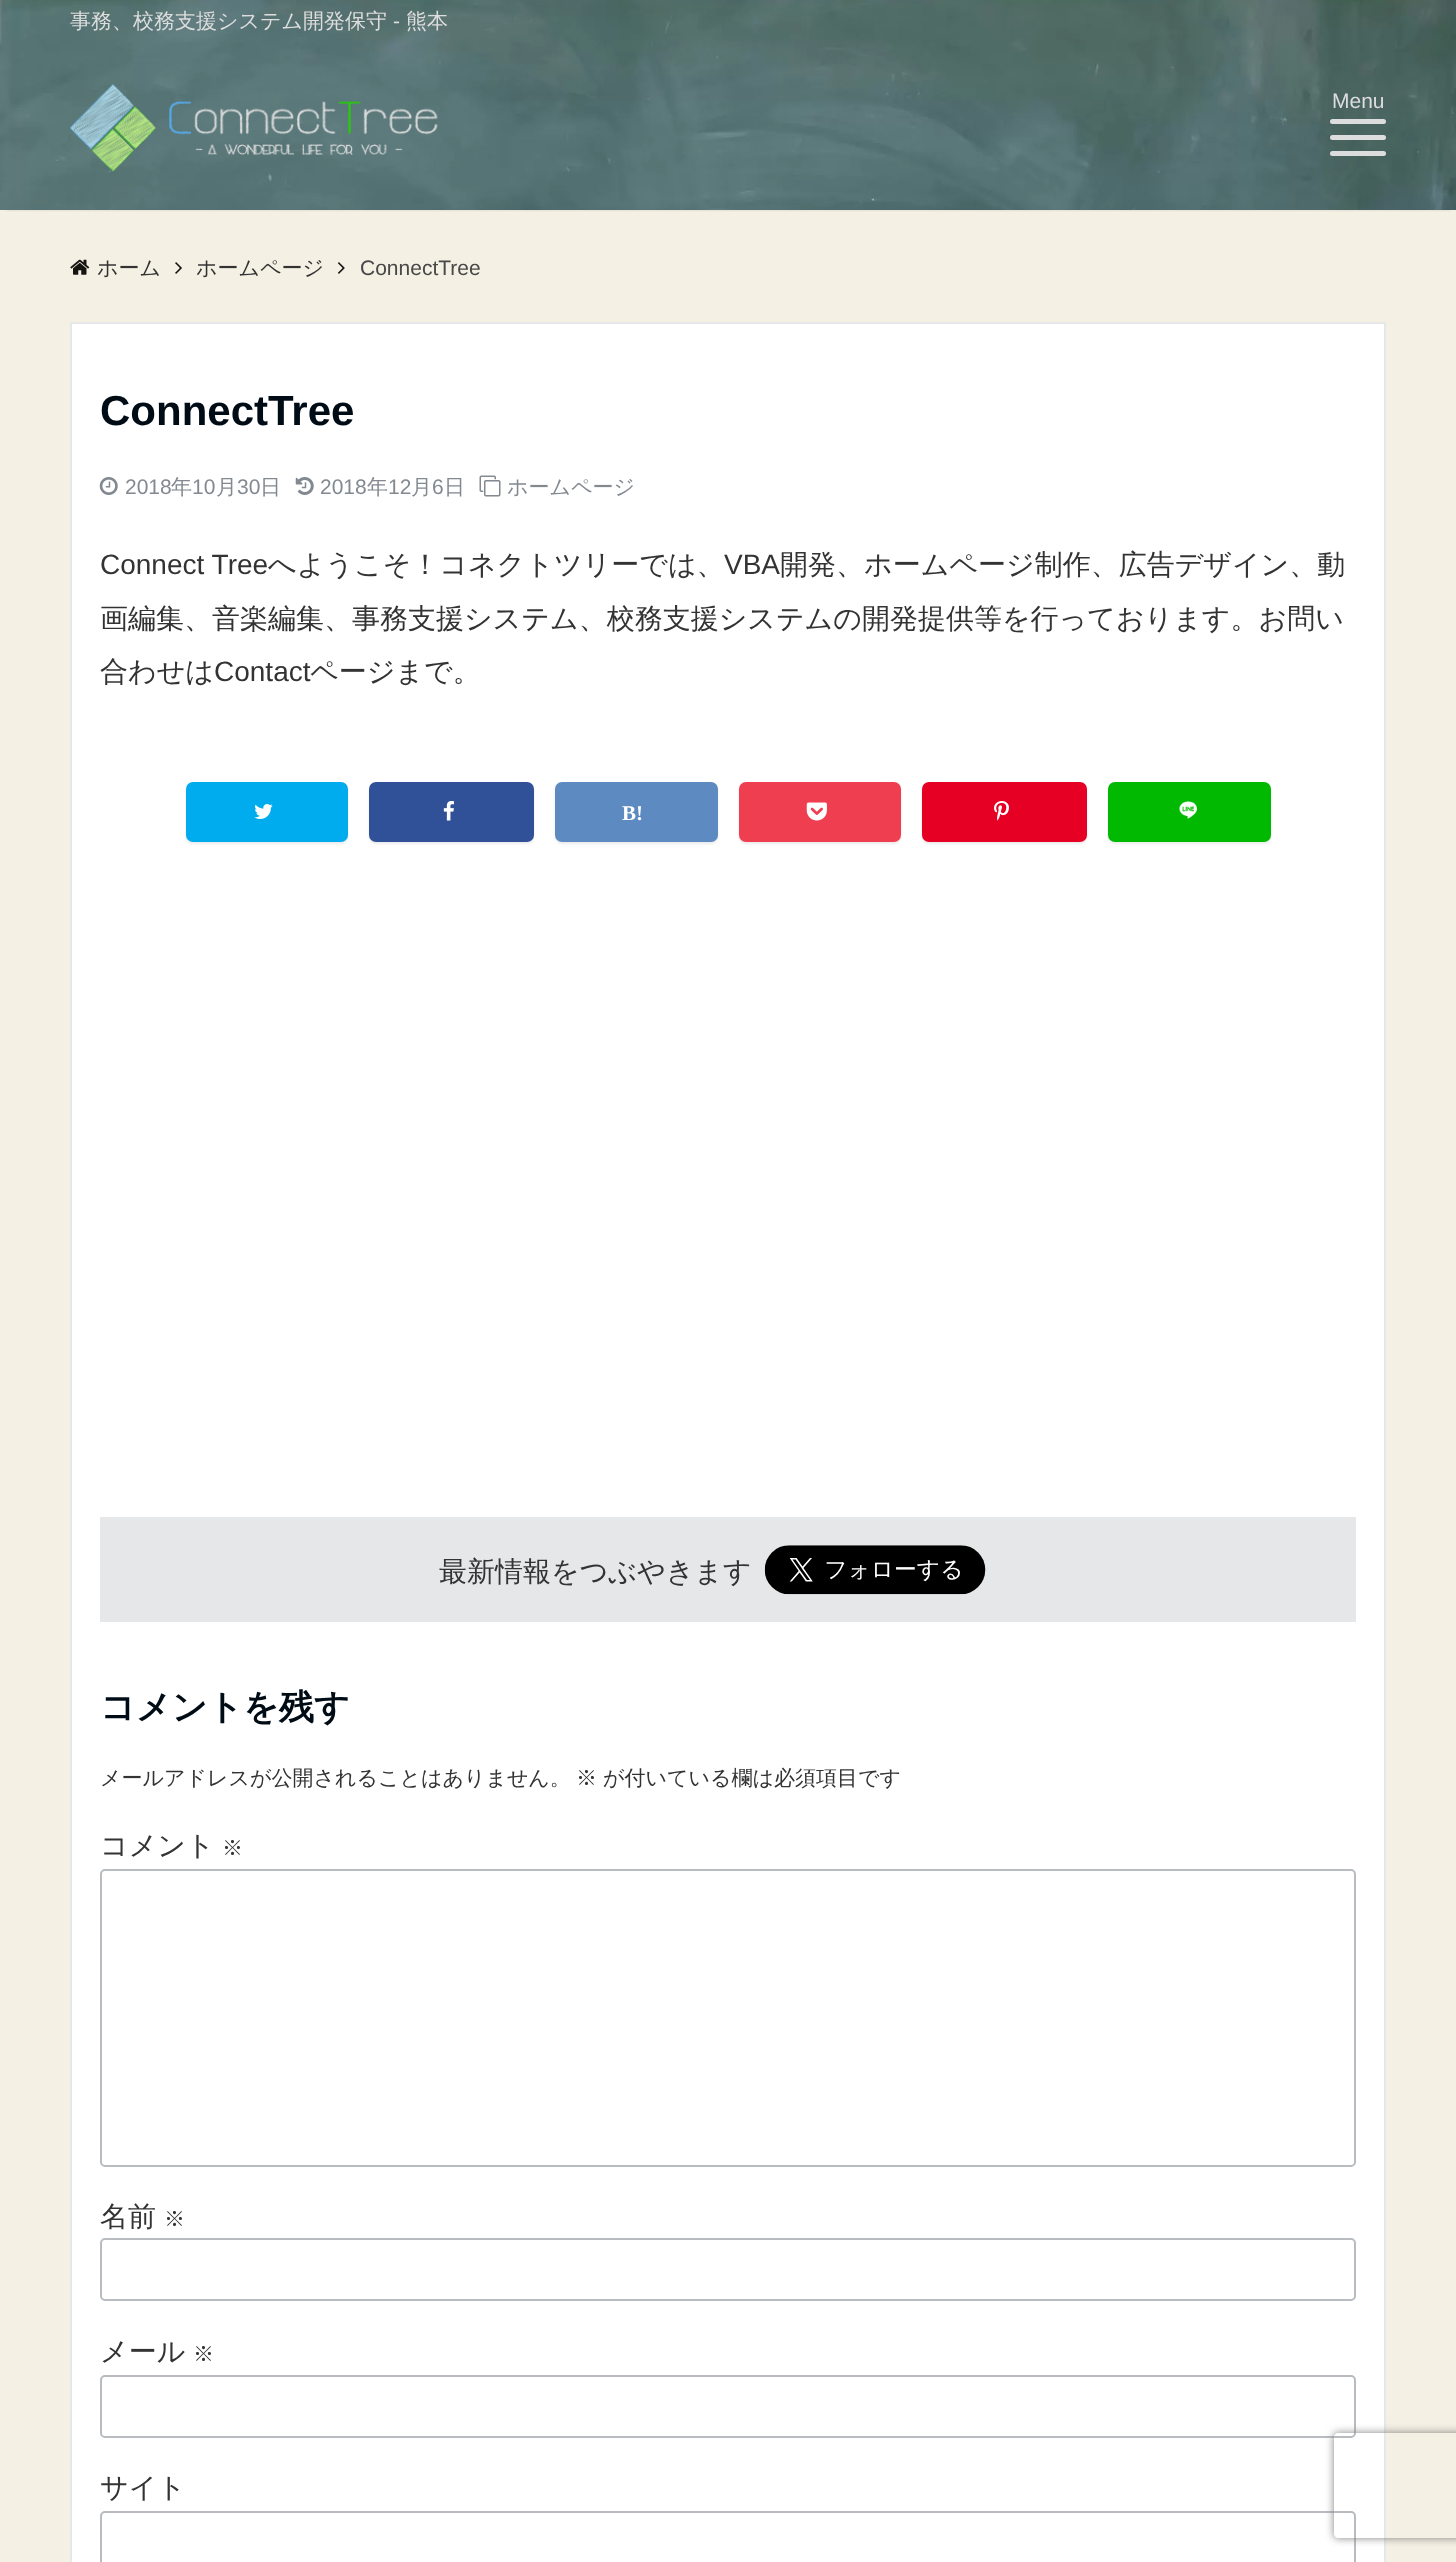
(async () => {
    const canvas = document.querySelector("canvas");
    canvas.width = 1456;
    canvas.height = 2562;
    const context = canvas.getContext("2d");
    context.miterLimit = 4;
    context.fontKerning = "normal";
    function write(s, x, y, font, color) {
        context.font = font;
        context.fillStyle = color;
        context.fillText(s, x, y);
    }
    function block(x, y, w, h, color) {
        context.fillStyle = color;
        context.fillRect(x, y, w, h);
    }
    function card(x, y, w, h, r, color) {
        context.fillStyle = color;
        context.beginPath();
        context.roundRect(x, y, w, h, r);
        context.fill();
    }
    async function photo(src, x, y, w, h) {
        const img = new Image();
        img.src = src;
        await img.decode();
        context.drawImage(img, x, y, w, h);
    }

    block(0, 0, 1456, 2562, "rgb(245, 240, 228)");
    await photo("media/1.png", 0, 0, 1456, 210);
    write("事務、校務支援システム開発保守", 70, 28, "500 21px WenQuanYi Zen Hei", "rgb(221, 221, 221)");
    write("-", 393, 28, "21px Liberation Sans", "rgb(221, 221, 221)");
    write("熊本", 406, 28, "500 21px WenQuanYi Zen Hei", "rgb(221, 221, 221)");
    context.save();
    context.beginPath();
    context.rect(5, 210, 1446, 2);
    context.clip();
    context.fillStyle = "rgba(0, 0, 0, 0.3)";
    context.filter = "blur(2.5px)";
    context.beginPath();
    context.rect(5, 51, 1446, 157);
    context.fill();
    context.filter = "none";
    context.restore();
    await photo("media/2.png", 70, 84, 368, 88);
    write("Menu", 1332, 108, "21px Liberation Sans", "rgb(221, 221, 221)");
    card(1330, 119, 56, 5, 2.5, "rgb(221, 221, 221)");
    card(1330, 135, 56, 5, 2.5, "rgb(221, 221, 221)");
    card(1330, 151, 56, 5, 2.5, "rgb(221, 221, 221)");
    await photo("media/3.png", 70, 259, 20, 16);
    write("ホーム", 97, 275, "500 21px WenQuanYi Zen Hei", "rgb(51, 51, 51)");
    await photo("media/4.png", 175, 262, 7, 12);
    write("ホームページ", 196, 275, "500 21px WenQuanYi Zen Hei", "rgb(51, 51, 51)");
    await photo("media/5.png", 338, 262, 7, 12);
    write("ConnectTree", 360, 275, "21px Liberation Sans", "rgb(72, 72, 72)");
    context.fillStyle = "rgb(255, 255, 255)";
    context.beginPath();
    context.rect(71, 323, 1314, 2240);
    context.fill();
    context.strokeStyle = "rgb(229, 231, 232)";
    context.lineWidth = 2;
    context.stroke();
    write("ConnectTree", 100, 425, "bold 42px Liberation Sans", "rgb(0, 12, 21)");
    await photo("media/6.png", 99, 477, 19, 18);
    write("2018", 125, 494, "21px Liberation Sans", "rgb(130, 137, 144)");
    write("年", 171, 494, "500 21px WenQuanYi Zen Hei", "rgb(130, 137, 144)");
    write("10", 192, 494, "21px Liberation Sans", "rgb(130, 137, 144)");
    write("月", 216, 494, "500 21px WenQuanYi Zen Hei", "rgb(130, 137, 144)");
    write("30", 237, 494, "21px Liberation Sans", "rgb(130, 137, 144)");
    write("日", 260, 494, "500 21px WenQuanYi Zen Hei", "rgb(130, 137, 144)");
    await photo("media/7.png", 295, 477, 19, 18);
    write("2018", 320, 494, "21px Liberation Sans", "rgb(130, 137, 144)");
    write("年", 367, 494, "500 21px WenQuanYi Zen Hei", "rgb(130, 137, 144)");
    write("12", 388, 494, "21px Liberation Sans", "rgb(130, 137, 144)");
    write("月", 411, 494, "500 21px WenQuanYi Zen Hei", "rgb(130, 137, 144)");
    write("6", 432, 494, "21px Liberation Sans", "rgb(130, 137, 144)");
    write("日", 444, 494, "500 21px WenQuanYi Zen Hei", "rgb(130, 137, 144)");
    await photo("media/8.png", 479, 475, 22, 22);
    write("ホームページ", 507, 494, "500 21px WenQuanYi Zen Hei", "rgb(130, 137, 144)");
    write("Connect Tree", 100, 574, "28px Liberation Sans", "rgb(51, 51, 51)");
    write("へようこそ！コネクトツリーでは、", 268, 574, "500 28px WenQuanYi Zen Hei", "rgb(51, 51, 51)");
    write("VBA", 724, 574, "28px Liberation Sans", "rgb(51, 51, 51)");
    write("開発、ホームページ制作、広告デザイン、動", 780, 574, "500 28px WenQuanYi Zen Hei", "rgb(51, 51, 51)");
    write("画編集、音楽編集、事務支援システム、校務支援システムの開発提供等を行っております。お問い", 100, 628, "500 28px WenQuanYi Zen Hei", "rgb(51, 51, 51)");
    write("合わせは", 100, 681, "500 28px WenQuanYi Zen Hei", "rgb(51, 51, 51)");
    write("Contact", 214, 681, "28px Liberation Sans", "rgb(51, 51, 51)");
    write("ページまで。", 310, 681, "500 28px WenQuanYi Zen Hei", "rgb(51, 51, 51)");
    context.fillStyle = "rgba(0, 0, 0, 0.08)";
    context.filter = "blur(1px)";
    context.beginPath();
    context.roundRect(186, 784, 162, 60, 7);
    context.fill();
    context.filter = "none";
    card(186, 782, 162, 60, 7, "rgb(0, 172, 238)");
    await photo("media/9.png", 254, 804, 19, 15);
    context.fillStyle = "rgba(0, 0, 0, 0.08)";
    context.filter = "blur(1px)";
    context.beginPath();
    context.roundRect(369, 784, 165, 60, 7);
    context.fill();
    context.filter = "none";
    card(369, 782, 165, 60, 7, "rgb(48, 80, 151)");
    await photo("media/10.png", 443, 801, 11, 20);
    context.fillStyle = "rgba(0, 0, 0, 0.08)";
    context.filter = "blur(1px)";
    context.beginPath();
    context.roundRect(555, 784, 163, 60, 7);
    context.fill();
    context.filter = "none";
    card(555, 782, 163, 60, 7, "rgb(93, 138, 193)");
    write("B!", 622, 820, "bold 21px Liberation Serif", "rgb(255, 255, 255)");
    context.fillStyle = "rgba(0, 0, 0, 0.08)";
    context.filter = "blur(1px)";
    context.beginPath();
    context.roundRect(739, 784, 162, 60, 7);
    context.fill();
    context.filter = "none";
    card(739, 782, 162, 60, 7, "rgb(240, 62, 81)");
    await photo("media/11.png", 806, 802, 21, 19);
    context.fillStyle = "rgba(0, 0, 0, 0.08)";
    context.filter = "blur(1px)";
    context.beginPath();
    context.roundRect(922, 784, 165, 60, 7);
    context.fill();
    context.filter = "none";
    card(922, 782, 165, 60, 7, "rgb(230, 0, 35)");
    await photo("media/12.png", 994, 801, 15, 20);
    context.fillStyle = "rgba(0, 0, 0, 0.08)";
    context.filter = "blur(1px)";
    context.beginPath();
    context.roundRect(1108, 784, 163, 60, 7);
    context.fill();
    context.filter = "none";
    card(1108, 782, 163, 60, 7, "rgb(0, 185, 0)");
    await photo("media/13.png", 1179, 801, 18, 18);
    block(100, 1517, 1256, 105, "rgb(229, 231, 232)");
    write("最新情報をつぶやきます", 439, 1581, "500 28px WenQuanYi Zen Hei", "rgb(51, 51, 51)");
    await photo("media/14.png", 764, 1545, 222, 50);
    write("コメントを残す", 100, 1719, "bold 35px WenQuanYi Zen Hei", "rgb(0, 12, 21)");
    write("メールアドレスが公開されることはありません。", 100, 1785, "500 21px WenQuanYi Zen Hei", "rgb(51, 51, 51)");
    write("※", 576, 1785, "500 21px WenQuanYi Zen Hei", "rgb(51, 51, 51)");
    write("が付いている欄は必須項目です", 603, 1785, "500 21px WenQuanYi Zen Hei", "rgb(51, 51, 51)");
    write("コメント", 100, 1855, "500 28px WenQuanYi Zen Hei", "rgb(51, 51, 51)");
    write("※", 222, 1855, "500 21px WenQuanYi Zen Hei", "rgb(51, 51, 51)");
    context.beginPath();
    context.roundRect(101, 1870, 1254, 296, 4);
    context.strokeStyle = "rgb(184, 188, 192)";
    context.stroke();
    write("名前", 100, 2226, "500 28px WenQuanYi Zen Hei", "rgb(51, 51, 51)");
    write("※", 164, 2226, "500 21px WenQuanYi Zen Hei", "rgb(51, 51, 51)");
    context.beginPath();
    context.roundRect(101, 2239, 1254, 61, 4);
    context.stroke();
    write("メール", 100, 2361, "500 28px WenQuanYi Zen Hei", "rgb(51, 51, 51)");
    write("※", 193, 2361, "500 21px WenQuanYi Zen Hei", "rgb(51, 51, 51)");
    context.beginPath();
    context.roundRect(101, 2376, 1254, 61, 4);
    context.stroke();
    write("サイト", 100, 2497, "500 28px WenQuanYi Zen Hei", "rgb(51, 51, 51)");
    context.beginPath();
    context.roundRect(101, 2512, 1254, 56, 4);
    context.stroke();
    context.save();
    context.beginPath();
    context.moveTo(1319, 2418);
    context.lineTo(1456, 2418);
    context.lineTo(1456, 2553);
    context.lineTo(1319, 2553);
    context.closePath();
    context.moveTo(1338, 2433);
    context.lineTo(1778, 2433);
    context.bezierCurveTo(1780, 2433, 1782, 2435, 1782, 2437);
    context.lineTo(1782, 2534);
    context.bezierCurveTo(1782, 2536, 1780, 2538, 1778, 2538);
    context.lineTo(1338, 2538);
    context.bezierCurveTo(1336, 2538, 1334, 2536, 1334, 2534);
    context.lineTo(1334, 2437);
    context.bezierCurveTo(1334, 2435, 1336, 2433, 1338, 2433);
    context.closePath();
    context.clip("evenodd");
    context.fillStyle = "rgb(128, 128, 128)";
    context.filter = "blur(4.5px)";
    context.beginPath();
    context.roundRect(1334, 2433, 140, 105, 4);
    context.fill();
    context.filter = "none";
    context.restore();
})();
